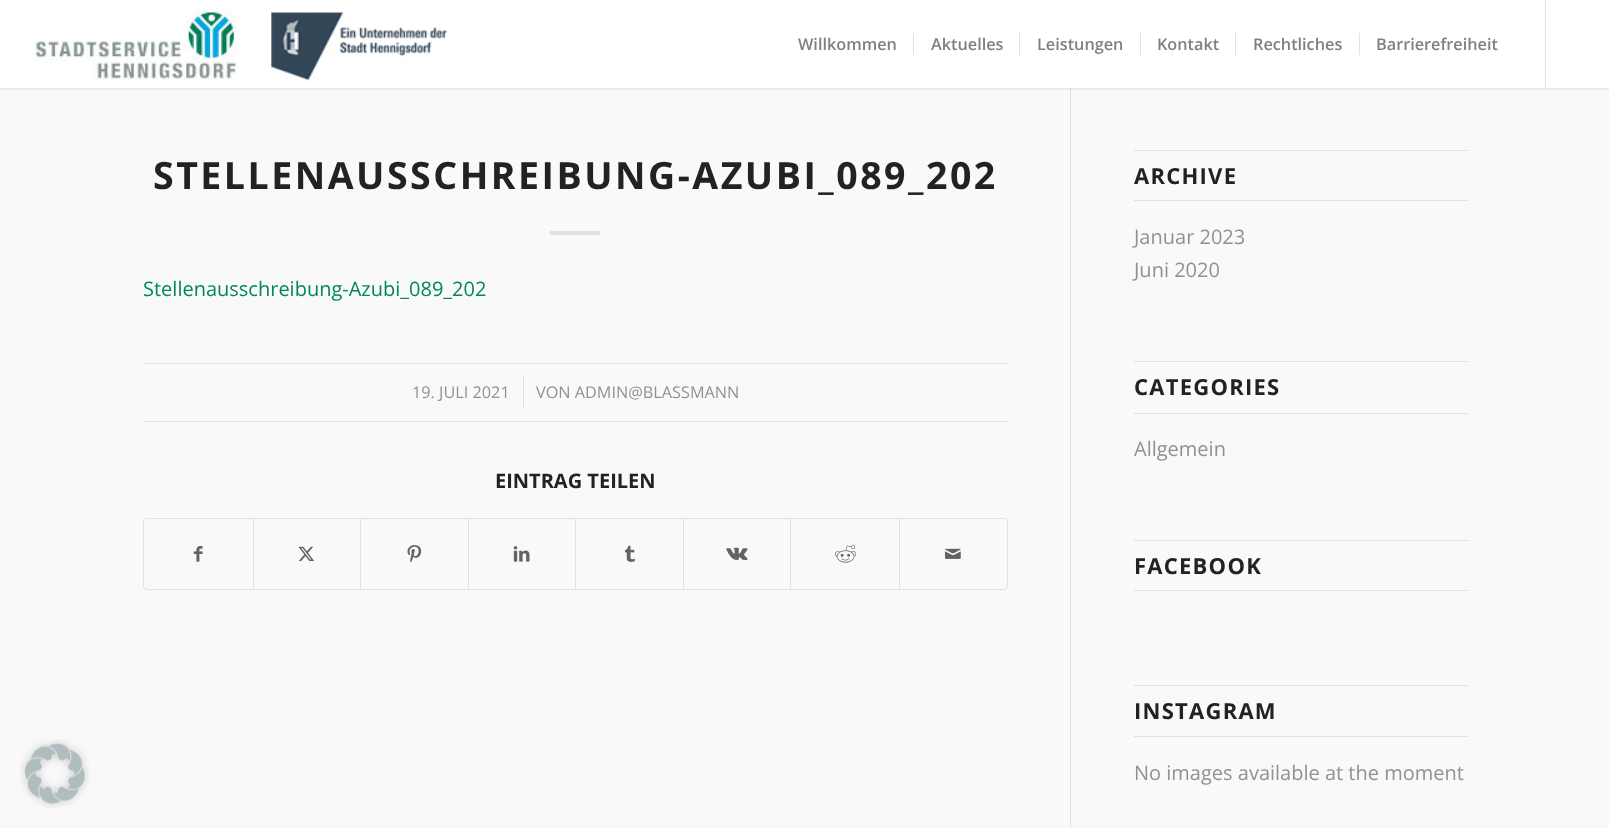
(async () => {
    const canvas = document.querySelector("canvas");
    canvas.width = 1609;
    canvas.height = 828;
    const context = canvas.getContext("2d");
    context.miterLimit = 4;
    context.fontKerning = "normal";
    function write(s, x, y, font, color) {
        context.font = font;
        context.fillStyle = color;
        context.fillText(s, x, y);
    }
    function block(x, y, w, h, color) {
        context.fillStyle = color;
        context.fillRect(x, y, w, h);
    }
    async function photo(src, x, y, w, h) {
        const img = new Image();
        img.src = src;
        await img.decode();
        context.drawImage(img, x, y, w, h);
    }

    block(0, 0, 1609, 828, "rgb(249, 249, 249)");
    await photo("media/1.png", 20, 739, 70, 69);
    block(1070, 88, 1, 740, "rgb(225, 225, 225)");
    context.fillStyle = "rgba(0, 0, 0, 0.1)";
    context.filter = "blur(1px)";
    context.beginPath();
    context.rect(-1, -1, 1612, 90);
    context.fill();
    context.filter = "none";
    block(0, 0, 1609, 88, "rgb(255, 255, 255)");
    await photo("media/2.png", 33, 10, 415, 71);
    block(1545, 0, 1, 88, "rgb(225, 225, 225)");
    write("Willkommen", 798, 50, "600 16.25px Open Sans", "rgb(128, 128, 128)");
    write("Aktuelles", 931, 50, "600 16.25px Open Sans", "rgb(128, 128, 128)");
    block(913, 33, 1, 22, "rgb(225, 225, 225)");
    write("Leistungen", 1037, 50, "600 16.25px Open Sans", "rgb(128, 128, 128)");
    block(1019, 33, 1, 22, "rgb(225, 225, 225)");
    write("Kontakt", 1157, 50, "600 16.25px Open Sans", "rgb(128, 128, 128)");
    block(1140, 33, 1, 22, "rgb(225, 225, 225)");
    write("Rechtliches", 1253, 50, "600 16.25px Open Sans", "rgb(128, 128, 128)");
    block(1235, 33, 1, 22, "rgb(225, 225, 225)");
    write("Barrierefreiheit", 1376, 50, "600 16.25px Open Sans", "rgb(128, 128, 128)");
    block(1359, 33, 1, 22, "rgb(225, 225, 225)");
    context.letterSpacing = "2.5px";
    write("STELLENAUSSCHREIBUNG-AZUBI_089_202", 153, 189, "bold 37.5px Open Sans", "rgb(34, 34, 34)");
    block(550, 231, 50, 4, "rgb(225, 225, 225)");
    context.letterSpacing = "0px";
    write("Stellenausschreibung-Azubi_089_202", 143, 296, "20px Open Sans", "rgb(0, 135, 90)");
    block(143, 363, 865, 1, "rgb(225, 225, 225)");
    block(143, 421, 865, 1, "rgb(225, 225, 225)");
    write("19. JULI 2021", 412, 398, "16.25px Open Sans", "rgb(145, 145, 145)");
    block(523, 376, 1, 33, "rgb(225, 225, 225)");
    write("VON ADMIN@BLASSMANN", 536, 398, "16.25px Open Sans", "rgb(145, 145, 145)");
    write("EINTRAG TEILEN", 495, 488, "bold 20px Open Sans", "rgb(34, 34, 34)");
    context.beginPath();
    context.roundRect(143.5, 518.5, 864, 71, 3.5);
    context.strokeStyle = "rgb(225, 225, 225)";
    context.stroke();
    await photo("media/3.png", 193, 546, 10, 16);
    block(253, 519, 1, 70, "rgb(225, 225, 225)");
    await photo("media/4.png", 298, 546, 16, 15);
    block(360, 519, 1, 70, "rgb(225, 225, 225)");
    await photo("media/5.png", 407, 545, 15, 18);
    block(468, 519, 1, 70, "rgb(225, 225, 225)");
    await photo("media/6.png", 513, 546, 17, 16);
    block(575, 519, 1, 70, "rgb(225, 225, 225)");
    await photo("media/7.png", 625, 545, 10, 17);
    block(683, 519, 1, 70, "rgb(225, 225, 225)");
    await photo("media/8.png", 726, 547, 22, 13);
    block(790, 519, 1, 70, "rgb(225, 225, 225)");
    await photo("media/9.png", 835, 545, 22, 18);
    block(899, 519, 1, 70, "rgb(225, 225, 225)");
    await photo("media/10.png", 945, 548, 16, 11);
    block(1134, 150, 334, 1, "rgb(225, 225, 225)");
    block(1134, 200, 334, 1, "rgb(225, 225, 225)");
    context.letterSpacing = "1.25px";
    write("ARCHIVE", 1134, 184, "bold 22px Open Sans", "rgb(34, 34, 34)");
    context.letterSpacing = "0px";
    write("Januar 2023", 1134, 244, "20px Open Sans", "rgb(145, 145, 145)");
    write("Juni 2020", 1134, 277, "20px Open Sans", "rgb(145, 145, 145)");
    block(1134, 361, 334, 1, "rgb(225, 225, 225)");
    block(1134, 413, 334, 1, "rgb(225, 225, 225)");
    context.letterSpacing = "1.25px";
    write("CATEGORIES", 1134, 395, "bold 22px Open Sans", "rgb(34, 34, 34)");
    context.letterSpacing = "0px";
    write("Allgemein", 1134, 456, "20px Open Sans", "rgb(145, 145, 145)");
    block(1134, 540, 334, 1, "rgb(225, 225, 225)");
    block(1134, 590, 334, 1, "rgb(225, 225, 225)");
    context.letterSpacing = "1.25px";
    write("FACEBOOK", 1134, 574, "bold 22px Open Sans", "rgb(34, 34, 34)");
    block(1134, 685, 334, 1, "rgb(225, 225, 225)");
    block(1134, 736, 334, 1, "rgb(225, 225, 225)");
    write("INSTAGRAM", 1134, 719, "bold 22px Open Sans", "rgb(34, 34, 34)");
    context.letterSpacing = "0px";
    write("No images available at the moment", 1134, 780, "20px Open Sans", "rgb(145, 145, 145)");
})();
